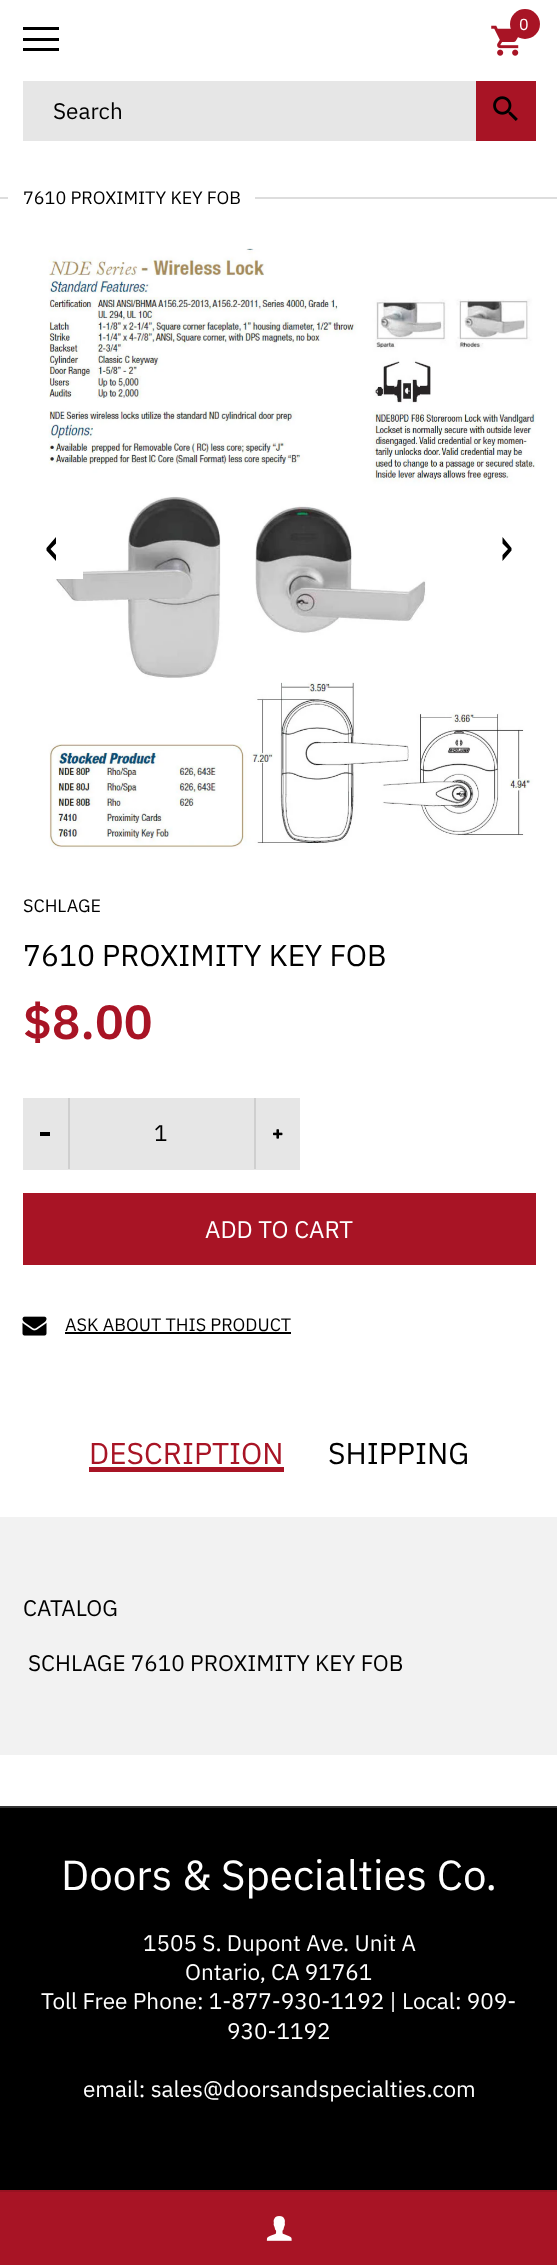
(async () => {
    const canvas = document.querySelector("canvas");
    canvas.width = 557;
    canvas.height = 2265;
    const context = canvas.getContext("2d");
    context.miterLimit = 4;
    context.fontKerning = "normal";
    function write(s, x, y, font, color) {
        context.font = font;
        context.fillStyle = color;
        context.fillText(s, x, y);
    }
    function block(x, y, w, h, color) {
        context.fillStyle = color;
        context.fillRect(x, y, w, h);
    }
    async function photo(src, x, y, w, h) {
        const img = new Image();
        img.src = src;
        await img.decode();
        context.drawImage(img, x, y, w, h);
    }

    block(0, 0, 557, 2265, "rgb(255, 255, 255)");
    await photo("media/1.png", 491, 25, 28, 31);
    context.fillStyle = "rgb(168, 20, 37)";
    context.beginPath();
    context.arc(525, 24, 15, 0, Math.PI * 2);
    context.fill();
    write("0", 519, 30, "16px IBM Plex Sans", "rgb(255, 255, 255)");
    block(23, 27, 36, 3, "rgb(0, 0, 0)");
    block(23, 38, 36, 3, "rgb(0, 0, 0)");
    block(23, 48, 36, 3, "rgb(0, 0, 0)");
    block(23, 81, 453, 60, "rgb(230, 230, 230)");
    write("Search", 53, 119, "22.5px IBM Plex Sans", "rgb(0, 0, 0)");
    block(476, 81, 60, 60, "rgb(168, 20, 37)");
    await photo("media/2.png", 493, 96, 25, 25);
    block(0, 197, 8, 2, "rgb(221, 221, 221)");
    write("7610 PROXIMITY KEY FOB", 23, 204, "18px IBM Plex Sans", "rgb(0, 0, 0)");
    block(255, 197, 302, 2, "rgb(221, 221, 221)");
    await photo("media/3.png", 48, 248, 488, 601);
    block(53, 560, 30, 19, "rgb(255, 255, 255)");
    context.fillStyle = "rgb(0, 0, 0)";
    context.beginPath();
    context.moveTo(56, 561);
    context.lineTo(46.5, 550.5);
    context.lineTo(46.5, 548);
    context.lineTo(56, 537);
    context.lineTo(56, 543.5);
    context.lineTo(50.5, 549);
    context.lineTo(56, 555);
    context.closePath();
    context.fill();
    context.beginPath();
    context.moveTo(502.5, 561);
    context.lineTo(511.5, 550.5);
    context.lineTo(511.5, 548);
    context.lineTo(502.5, 537);
    context.lineTo(502.5, 543.5);
    context.lineTo(508, 549);
    context.lineTo(502.5, 555);
    context.closePath();
    context.fill();
    write("SCHLAGE", 23, 912, "18px IBM Plex Sans", "rgb(0, 0, 0)");
    write("7610 PROXIMITY KEY FOB", 23, 966, "30px IBM Plex Sans", "rgb(0, 0, 0)");
    write("$8.00", 23, 1039, "600 48px IBM Plex Sans", "rgb(168, 20, 37)");
    block(23, 1098, 277, 72, "rgb(230, 230, 230)");
    block(254, 1098, 2, 71, "rgb(207, 207, 207)");
    block(68, 1098, 2, 71, "rgb(207, 207, 207)");
    write("1", 154, 1141, "22.5px IBM Plex Sans", "rgb(0, 0, 0)");
    block(40, 1132, 10, 4, "rgb(0, 0, 0)");
    await photo("media/4.png", 273, 1129, 10, 10);
    block(23, 1193, 513, 72, "rgb(168, 20, 37)");
    write("ADD TO CART", 205, 1238, "24px IBM Plex Sans", "rgb(255, 255, 255)");
    await photo("media/5.png", 22, 1316, 25, 20);
    write("ASK ABOUT THIS PRODUCT", 65, 1331, "18px IBM Plex Sans", "rgb(0, 0, 0)");
    block(65, 1332, 226, 2, "rgb(0, 0, 0)");
    write("DESCRIPTION", 89, 1464, "30px IBM Plex Sans", "rgb(168, 20, 37)");
    block(89, 1467, 195, 5, "rgb(168, 20, 37)");
    write("SHIPPING", 328, 1464, "30px IBM Plex Sans", "rgb(0, 0, 0)");
    block(0, 1517, 557, 238, "rgb(242, 242, 242)");
    write("CATALOG", 23, 1616, "22.5px IBM Plex Sans", "rgb(0, 0, 0)");
    write("SCHLAGE 7610 PROXIMITY KEY FOB", 28, 1671, "22.5px IBM Plex Sans", "rgb(0, 0, 0)");
    block(0, 1808, 557, 382, "rgb(0, 0, 0)");
    block(0, 1806, 557, 2, "rgb(51, 51, 51)");
    write("Doors & Specialties Co.", 61, 1890, "42px IBM Plex Sans", "rgb(255, 255, 255)");
    write("1505 S. Dupont Ave. Unit A", 143, 1951, "22.5px IBM Plex Sans", "rgb(255, 255, 255)");
    write("Ontario, CA 91761", 185, 1980, "22.5px IBM Plex Sans", "rgb(255, 255, 255)");
    write("Toll Free Phone: 1-877-930-1192 | Local: 909-", 41, 2009, "22.5px IBM Plex Sans", "rgb(255, 255, 255)");
    write("930-1192", 227, 2039, "22.5px IBM Plex Sans", "rgb(255, 255, 255)");
    write("email: sales@doorsandspecialties.com", 83, 2097, "22.5px IBM Plex Sans", "rgb(255, 255, 255)");
    block(0, 2192, 557, 73, "rgb(168, 20, 37)");
    block(0, 2190, 557, 2, "rgb(151, 18, 33)");
    await photo("media/6.png", 266, 2216, 26, 25);
})();
